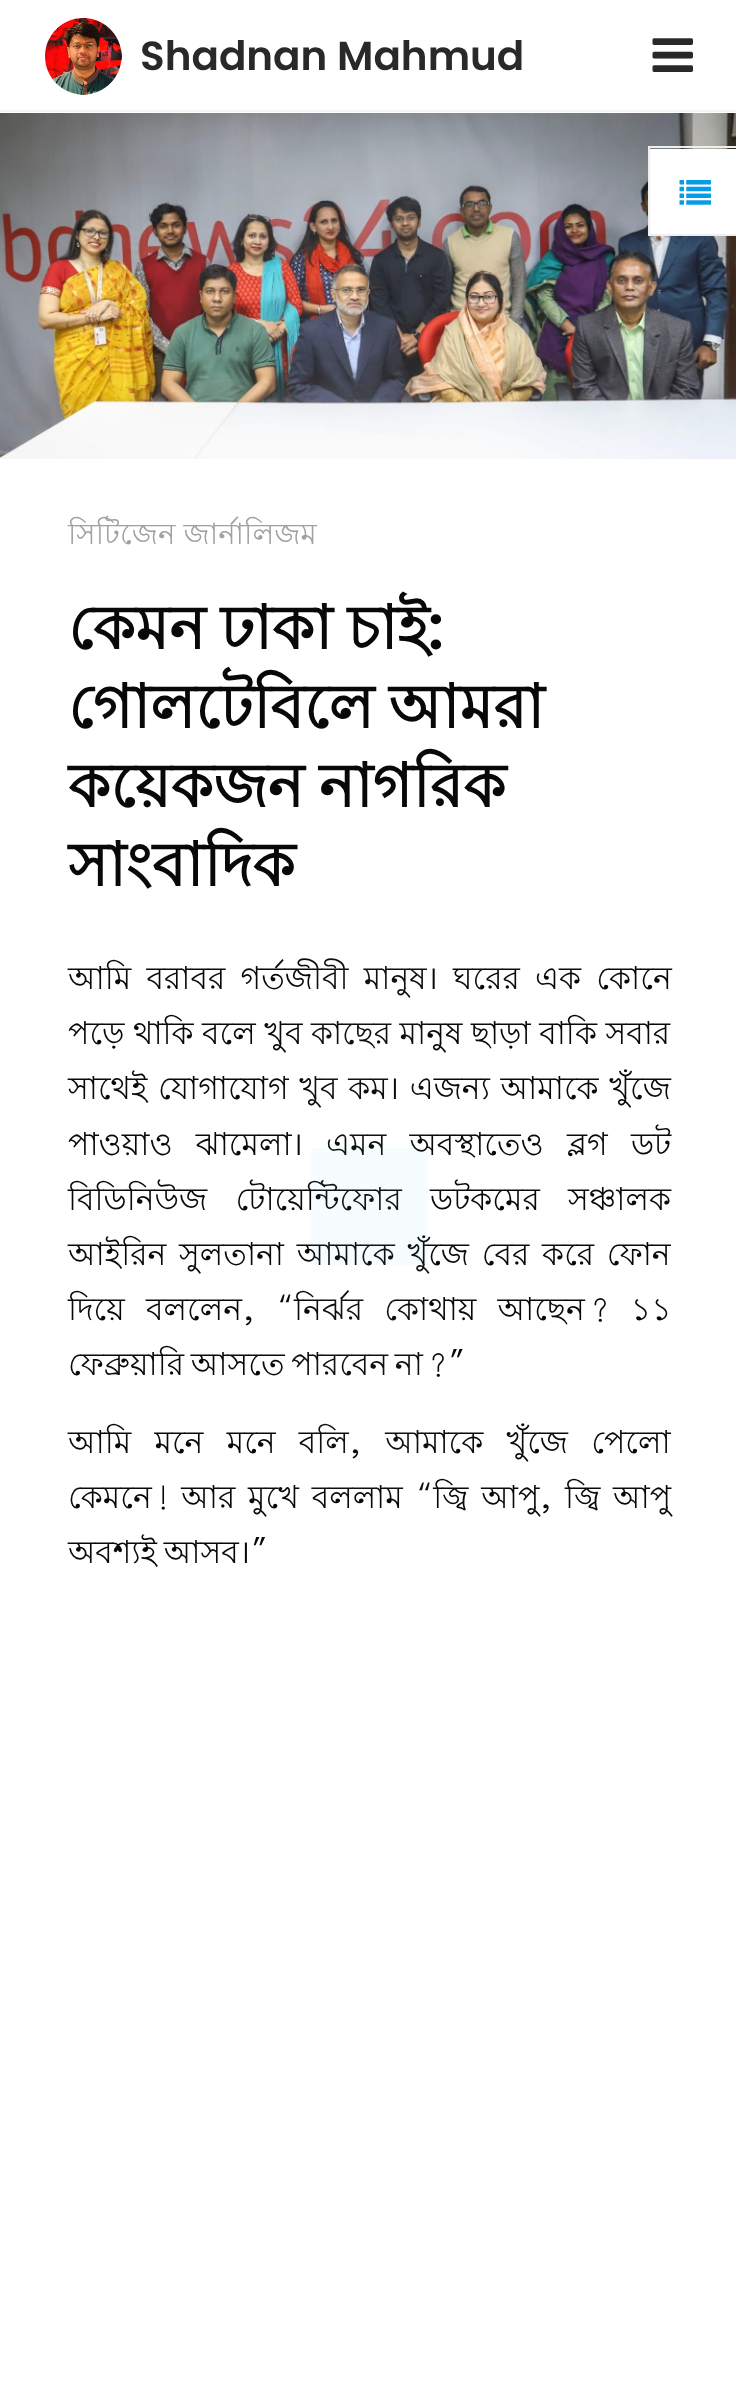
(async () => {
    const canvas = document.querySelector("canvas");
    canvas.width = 736;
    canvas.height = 2408;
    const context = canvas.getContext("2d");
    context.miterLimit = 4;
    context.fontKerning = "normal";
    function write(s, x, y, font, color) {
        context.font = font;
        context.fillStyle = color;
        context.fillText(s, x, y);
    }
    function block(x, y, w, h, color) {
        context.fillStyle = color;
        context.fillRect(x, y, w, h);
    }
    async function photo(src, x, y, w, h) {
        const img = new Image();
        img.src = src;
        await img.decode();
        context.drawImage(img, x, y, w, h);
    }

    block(0, 0, 736, 2408, "rgb(255, 255, 255)");
    block(0, 110, 736, 2, "rgb(245, 245, 245)");
    await photo("media/1.png", 45, 18, 77, 77);
    write("Shadnan Mahmud", 140, 70, "600 40.5px Poppins", "rgb(41, 41, 41)");
    await photo("media/2.png", 652, 38, 41, 34);
    await photo("media/4.png", 0, 113, 736, 346);
    block(650, 149, 86, 85, "rgb(255, 255, 255)");
    block(648, 146, 88, 2, "rgb(239, 239, 239)");
    block(648, 234, 88, 2, "rgb(239, 239, 239)");
    block(648, 146, 2, 90, "rgb(239, 239, 239)");
    await photo("media/3.png", 679, 180, 32, 25);
    write("সিটিজেন জার্নালিজম", 68, 544, "29.25px Lohit Bengali", "rgb(161, 161, 161)");
    context.wordSpacing = "-2px";
    write("কেমন ঢাকা চাই", 68, 649, "bold 60.75px Lohit Bengali", "rgb(8, 8, 8)");
    context.wordSpacing = "0px";
    write(":", 428, 649, "600 60.75px Poppins", "rgb(8, 8, 8)");
    context.wordSpacing = "-2px";
    write("গোলটেবিলে আমরা", 68, 728, "bold 60.75px Lohit Bengali", "rgb(8, 8, 8)");
    write("কয়েকজন নাগরিক", 68, 807, "bold 60.75px Lohit Bengali", "rgb(8, 8, 8)");
    context.wordSpacing = "0px";
    write("সাংবাদিক", 68, 886, "bold 60.75px Lohit Bengali", "rgb(8, 8, 8)");
    context.wordSpacing = "6.5px";
    write("আমি বরাবর গর্তজীবী মানুষ। ঘরের এক কোনে", 68, 989, "31.5px Lohit Bengali", "rgb(8, 8, 8)");
    context.wordSpacing = "-0.25px";
    write("পড়ে থাকি বলে খুব কাছের মানুষ ছাড়া বাকি সবার", 68, 1044, "31.5px Lohit Bengali", "rgb(8, 8, 8)");
    context.wordSpacing = "2px";
    write("সাথেই যোগাযোগ খুব কম। এজন্য আমাকে খুঁজে", 68, 1099, "31.5px Lohit Bengali", "rgb(8, 8, 8)");
    context.wordSpacing = "14.5px";
    write("পাওয়াও ঝামেলা। এমন অবস্থাতেও ব্লগ ডট", 68, 1155, "31.5px Lohit Bengali", "rgb(8, 8, 8)");
    context.wordSpacing = "19.5px";
    write("বিডিনিউজ টোয়েন্টিফোর ডটকমের সঞ্চালক", 68, 1210, "31.5px Lohit Bengali", "rgb(8, 8, 8)");
    context.wordSpacing = "4px";
    write("আইরিন সুলতানা আমাকে খুঁজে বের করে ফোন", 68, 1265, "31.5px Lohit Bengali", "rgb(8, 8, 8)");
    context.wordSpacing = "12.5px";
    write("দিয়ে বললেন, “নির্ঝর কোথায় আছেন? ১১", 68, 1320, "31.5px Lohit Bengali", "rgb(8, 8, 8)");
    context.wordSpacing = "-2px";
    write("ফেব্রুয়ারি আসতে পারবেন না?”", 68, 1375, "31.5px Lohit Bengali", "rgb(8, 8, 8)");
    context.wordSpacing = "14.5px";
    write("আমি মনে মনে বলি, আমাকে খুঁজে পেলো", 68, 1453, "31.5px Lohit Bengali", "rgb(8, 8, 8)");
    context.wordSpacing = "4px";
    write("কেমনে! আর মুখে বললাম “জ্বি আপু, জ্বি আপু", 68, 1508, "31.5px Lohit Bengali", "rgb(8, 8, 8)");
    context.wordSpacing = "-2px";
    write("অবশ্যই আসব।”", 68, 1563, "31.5px Lohit Bengali", "rgb(8, 8, 8)");
    block(311, 958, 117, 532, "rgba(255, 255, 255, 0.03)");
    block(311, 1148, 117, 117, "rgba(0, 153, 229, 0.03)");
})();
